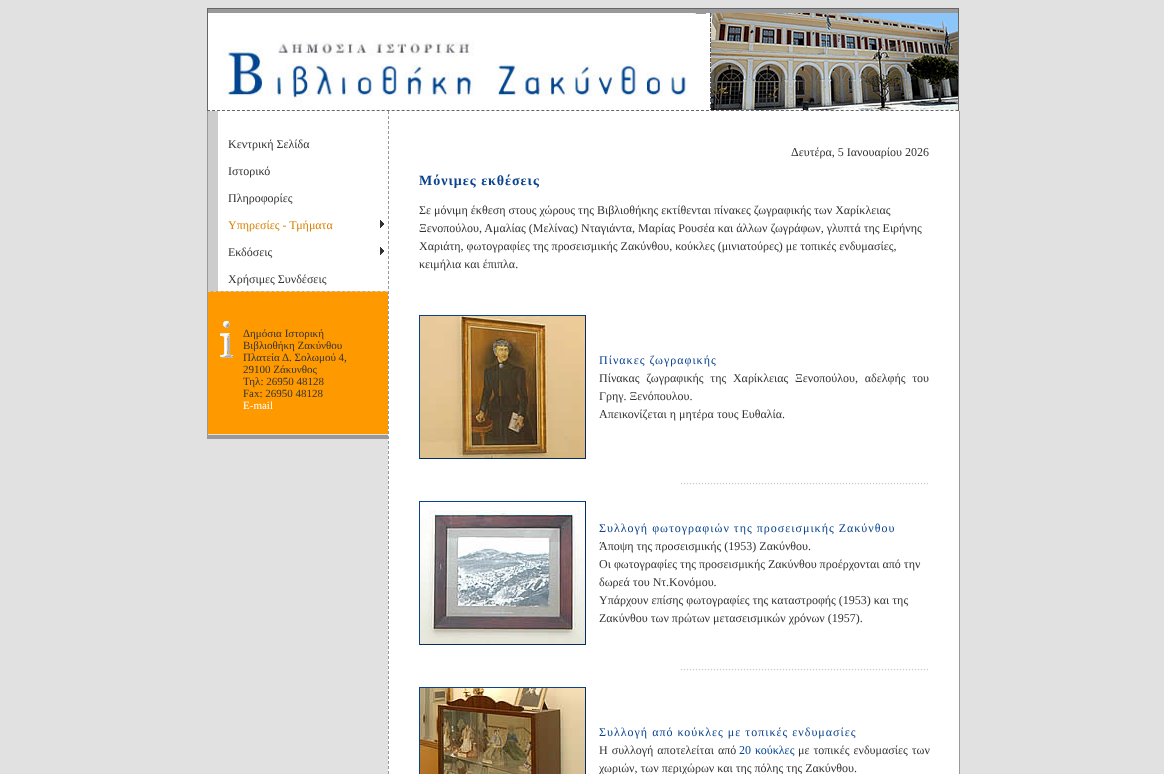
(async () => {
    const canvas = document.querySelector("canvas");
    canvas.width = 1164;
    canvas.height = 774;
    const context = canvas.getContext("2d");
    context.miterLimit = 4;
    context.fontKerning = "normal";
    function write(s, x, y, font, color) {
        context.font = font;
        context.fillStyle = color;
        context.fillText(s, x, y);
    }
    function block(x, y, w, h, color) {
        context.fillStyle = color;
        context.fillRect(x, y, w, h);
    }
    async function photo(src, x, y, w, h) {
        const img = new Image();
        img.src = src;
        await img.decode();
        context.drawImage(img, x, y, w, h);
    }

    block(0, 0, 1164, 774, "rgb(225, 225, 225)");
    block(208, 14, 748, 97, "rgb(255, 255, 255)");
    block(207, 9, 752, 5, "rgb(153, 153, 153)");
    block(207, 8, 752, 1, "rgb(102, 102, 102)");
    block(958, 8, 1, 103, "rgb(102, 102, 102)");
    context.beginPath();
    context.moveTo(207, 110.5);
    context.lineTo(959, 110.5);
    context.strokeStyle = "rgb(102, 102, 102)";
    context.setLineDash([3, 1.99]);
    context.stroke();
    block(207, 8, 1, 103, "rgb(102, 102, 102)");
    await photo("media/1.png", 706, 13, 252, 97);
    await photo("media/2.png", 208, 13, 488, 91);
    block(207, 435, 181, 4, "rgb(153, 153, 153)");
    block(207, 111, 1, 328, "rgb(153, 153, 153)");
    block(218, 111, 170, 180, "rgb(255, 255, 255)");
    block(208, 111, 10, 180, "rgb(204, 204, 204)");
    write("Κεντρική Σελίδα", 228, 148, "12px Liberation Serif", "rgb(51, 51, 51)");
    write("Ιστορικό", 228, 175, "12px Liberation Serif", "rgb(51, 51, 51)");
    write("Πληροφορίες", 228, 202, "12px Liberation Serif", "rgb(51, 51, 51)");
    await photo("media/3.png", 380, 220, 4, 8);
    write("Υπηρεσίες - Τμήματα", 228, 229, "12px Liberation Serif", "rgb(215, 129, 0)");
    await photo("media/3.png", 380, 247, 4, 8);
    write("Εκδόσεις", 228, 256, "12px Liberation Serif", "rgb(51, 51, 51)");
    write("Χρήσιμες Συνδέσεις", 228, 283, "12px Liberation Serif", "rgb(51, 51, 51)");
    block(208, 291, 180, 143, "rgb(255, 153, 0)");
    context.beginPath();
    context.moveTo(208, 291.5);
    context.lineTo(388, 291.5);
    context.strokeStyle = "rgb(204, 204, 204)";
    context.setLineDash([3, 2.06]);
    context.stroke();
    await photo("media/4.png", 220, 321, 13, 37);
    write("Δημόσια Ιστορική", 243, 337, "11px Liberation Serif", "rgb(51, 51, 51)");
    write("Βιβλιοθήκη Ζακύνθου", 243, 349, "11px Liberation Serif", "rgb(51, 51, 51)");
    write("Πλατεία Δ. Σολωμού 4,", 243, 361, "11px Liberation Serif", "rgb(51, 51, 51)");
    write("29100 Ζάκυνθος", 243, 373, "11px Liberation Serif", "rgb(51, 51, 51)");
    write("Τηλ: 26950 48128", 243, 385, "11px Liberation Serif", "rgb(51, 51, 51)");
    write("Fax: 26950 48128", 243, 397, "11px Liberation Serif", "rgb(51, 51, 51)");
    write("E-mail", 243, 409, "11px Liberation Serif", "rgb(255, 255, 255)");
    block(388, 111, 571, 663, "rgb(255, 255, 255)");
    block(959, 111, 1, 663, "rgb(153, 153, 153)");
    context.beginPath();
    context.moveTo(388.5, 111);
    context.lineTo(388.5, 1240);
    context.strokeStyle = "rgb(153, 153, 153)";
    context.setLineDash([3, 2]);
    context.stroke();
    write("Δευτέρα, 5 Ιανουαρίου 2026", 791, 156, "12px Liberation Serif", "rgb(51, 51, 51)");
    context.letterSpacing = "1px";
    write("Μόνιμες εκθέσεις", 419, 185, "bold 14px Liberation Serif", "rgb(9, 66, 143)");
    context.letterSpacing = "0px";
    write("Σε μόνιμη έκθεση στους χώρους της Βιβλιοθήκης εκτίθενται πίνακες ζωγραφικής των Χαρίκλειας", 419, 214, "12px Liberation Serif", "rgb(51, 51, 51)");
    write("Ξενοπούλου, Αμαλίας (Μελίνας) Νταγιάντα, Μαρίας Ρουσέα και άλλων ζωγράφων, γλυπτά της Ειρήνης", 419, 232, "12px Liberation Serif", "rgb(51, 51, 51)");
    write("Χαριάτη, φωτογραφίες της προσεισμικής Ζακύνθου, κούκλες (μινιατούρες) με τοπικές ενδυμασίες,", 419, 250, "12px Liberation Serif", "rgb(51, 51, 51)");
    write("κειμήλια και έπιπλα.", 419, 268, "12px Liberation Serif", "rgb(51, 51, 51)");
    block(419, 315, 167, 1, "rgb(9, 66, 143)");
    block(585, 315, 1, 144, "rgb(6, 44, 95)");
    block(419, 458, 167, 1, "rgb(6, 44, 95)");
    block(419, 315, 1, 144, "rgb(9, 66, 143)");
    await photo("media/5.png", 420, 316, 165, 142);
    context.letterSpacing = "1px";
    write("Πίνακες ζωγραφικής", 599, 364, "12px Liberation Serif", "rgb(9, 66, 143)");
    context.letterSpacing = "0px";
    context.wordSpacing = "3.75px";
    write("Πίνακας ζωγραφικής της Χαρίκλειας Ξενοπούλου, αδελφής του", 599, 382, "12px Liberation Serif", "rgb(51, 51, 51)");
    context.wordSpacing = "0px";
    write("Γρηγ. Ξενόπουλου.", 599, 400, "12px Liberation Serif", "rgb(51, 51, 51)");
    write("Απεικονίζεται η μητέρα τους Ευθαλία.", 599, 418, "12px Liberation Serif", "rgb(51, 51, 51)");
    write("...................................................................................", 680, 484, "12px Liberation Serif", "rgb(204, 204, 204)");
    block(419, 501, 167, 1, "rgb(9, 66, 143)");
    block(585, 501, 1, 144, "rgb(6, 44, 95)");
    block(419, 644, 167, 1, "rgb(6, 44, 95)");
    block(419, 501, 1, 144, "rgb(9, 66, 143)");
    await photo("media/6.png", 420, 510, 165, 134);
    context.letterSpacing = "1px";
    write("Συλλογή φωτογραφιών της προσεισμικής Ζακύνθου", 599, 532, "12px Liberation Serif", "rgb(9, 66, 143)");
    context.letterSpacing = "0px";
    write("Άποψη της προσεισμικής (1953) Ζακύνθου.", 599, 550, "12px Liberation Serif", "rgb(51, 51, 51)");
    write("Οι φωτογραφίες της προσεισμικής Ζακύνθου προέρχονται από την", 599, 568, "12px Liberation Serif", "rgb(51, 51, 51)");
    write("δωρεά του Ντ.Κονόμου.", 599, 586, "12px Liberation Serif", "rgb(51, 51, 51)");
    write("Υπάρχουν επίσης φωτογραφίες της καταστροφής (1953) και της", 599, 604, "12px Liberation Serif", "rgb(51, 51, 51)");
    write("Ζακύνθου των πρώτων μετασεισμικών χρόνων (1957).", 599, 622, "12px Liberation Serif", "rgb(51, 51, 51)");
    write("...................................................................................", 680, 670, "12px Liberation Serif", "rgb(204, 204, 204)");
    block(419, 687, 167, 1, "rgb(9, 66, 143)");
    block(419, 687, 1, 87, "rgb(9, 66, 143)");
    await photo("media/7.png", 420, 688, 165, 86);
    block(585, 687, 1, 87, "rgb(6, 44, 95)");
    context.letterSpacing = "1px";
    write("Συλλογή από κούκλες με τοπικές ενδυμασίες", 599, 736, "12px Liberation Serif", "rgb(9, 66, 143)");
    context.letterSpacing = "0px";
    context.wordSpacing = "1px";
    write("Η συλλογή αποτελείται από", 599, 754, "12px Liberation Serif", "rgb(51, 51, 51)");
    write("20 κούκλες", 739, 754, "12px Liberation Serif", "rgb(0, 72, 148)");
    write("με τοπικές ενδυμασίες των", 798, 754, "12px Liberation Serif", "rgb(51, 51, 51)");
    context.wordSpacing = "0px";
    write("χωριών, των περιχώρων και της πόλης της Ζακύνθου.", 599, 772, "12px Liberation Serif", "rgb(51, 51, 51)");
})();
